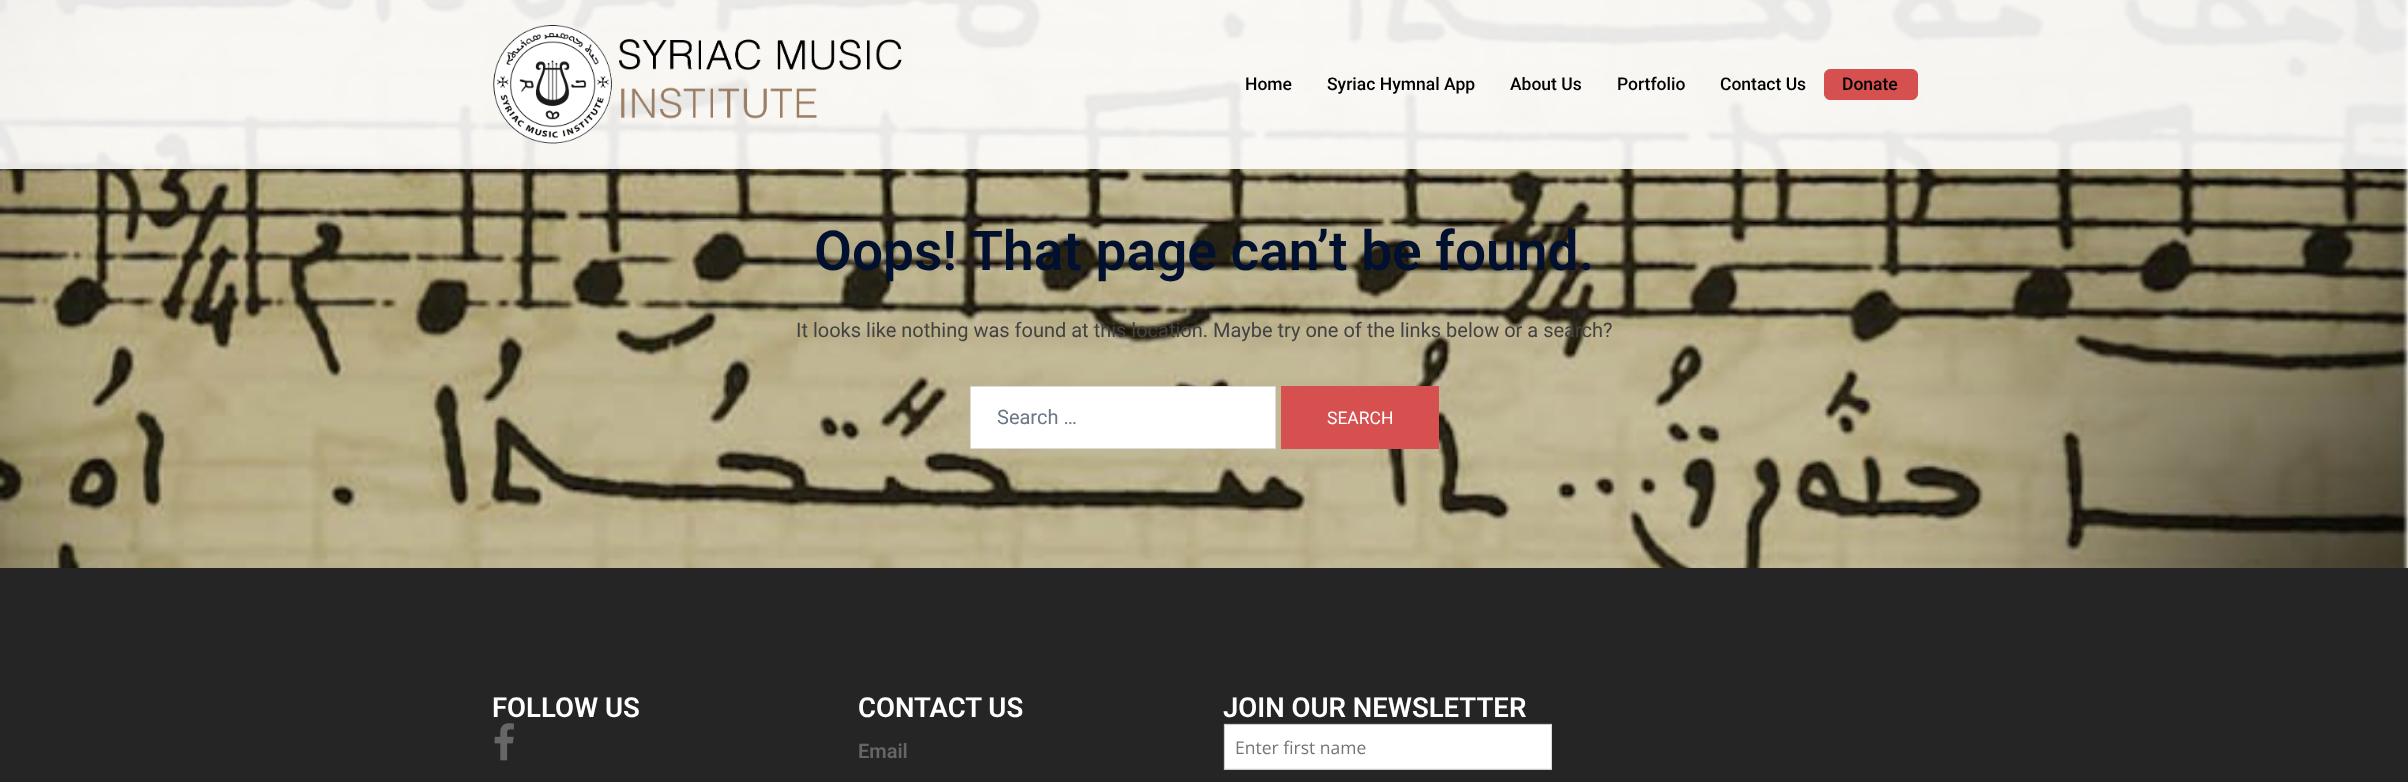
(async () => {
    const canvas = document.querySelector("canvas");
    canvas.width = 2408;
    canvas.height = 782;
    const context = canvas.getContext("2d");
    context.miterLimit = 4;
    context.fontKerning = "normal";
    function write(s, x, y, font, color) {
        context.font = font;
        context.fillStyle = color;
        context.fillText(s, x, y);
    }
    function block(x, y, w, h, color) {
        context.fillStyle = color;
        context.fillRect(x, y, w, h);
    }
    async function photo(src, x, y, w, h) {
        const img = new Image();
        img.src = src;
        await img.decode();
        context.drawImage(img, x, y, w, h);
    }

    block(0, 0, 2408, 782, "rgb(255, 255, 255)");
    await photo("media/1.png", 0, 0, 2408, 568);
    block(0, 0, 2408, 169, "rgba(255, 255, 255, 0.9)");
    await photo("media/2.png", 493, 25, 409, 119);
    write("Home", 1245, 90, "500 17.5px Roboto", "rgb(0, 0, 0)");
    write("Syriac Hymnal App", 1327, 90, "500 17.5px Roboto", "rgb(0, 0, 0)");
    write("About Us", 1510, 90, "500 17.5px Roboto", "rgb(0, 0, 0)");
    write("Portfolio", 1617, 90, "500 17.5px Roboto", "rgb(0, 0, 0)");
    write("Contact Us", 1720, 90, "500 17.5px Roboto", "rgb(0, 0, 0)");
    context.fillStyle = "rgb(214, 80, 80)";
    context.beginPath();
    context.roundRect(1824.5, 69.5, 93, 30, 5.5);
    context.fill();
    context.strokeStyle = "rgb(214, 80, 80)";
    context.stroke();
    write("Donate", 1842, 90, "500 17.5px Roboto", "rgb(0, 0, 0)");
    write("Oops! That page can’t be found.", 814, 270, "600 55px Roboto", "rgb(0, 16, 46)");
    write("It looks like nothing was found at this location. Maybe try one of the links below or a search?", 796, 337, "20px Roboto", "rgb(66, 66, 66)");
    context.fillStyle = "rgb(255, 255, 255)";
    context.beginPath();
    context.rect(970.5, 386.5, 305, 62);
    context.fill();
    context.strokeStyle = "rgb(219, 219, 219)";
    context.stroke();
    write("Search …", 997, 424, "20px Roboto", "rgb(109, 118, 133)");
    block(1281, 386, 158, 63, "rgb(214, 80, 80)");
    write("SEARCH", 1327, 424, "17.5px Roboto", "rgb(255, 255, 255)");
    block(0, 568, 2408, 214, "rgb(37, 37, 37)");
    write("FOLLOW US", 492, 717, "600 27.5px Roboto", "rgb(255, 255, 255)");
    await photo("media/3.png", 494, 723, 20, 38);
    write("CONTACT US", 858, 717, "600 27.5px Roboto", "rgb(255, 255, 255)");
    write("Email", 858, 758, "600 20px Roboto", "rgb(102, 102, 102)");
    write("JOIN OUR NEWSLETTER", 1223, 717, "600 27.5px Roboto", "rgb(255, 255, 255)");
    await photo("media/4.png", 1223, 723, 329, 47);
})();
